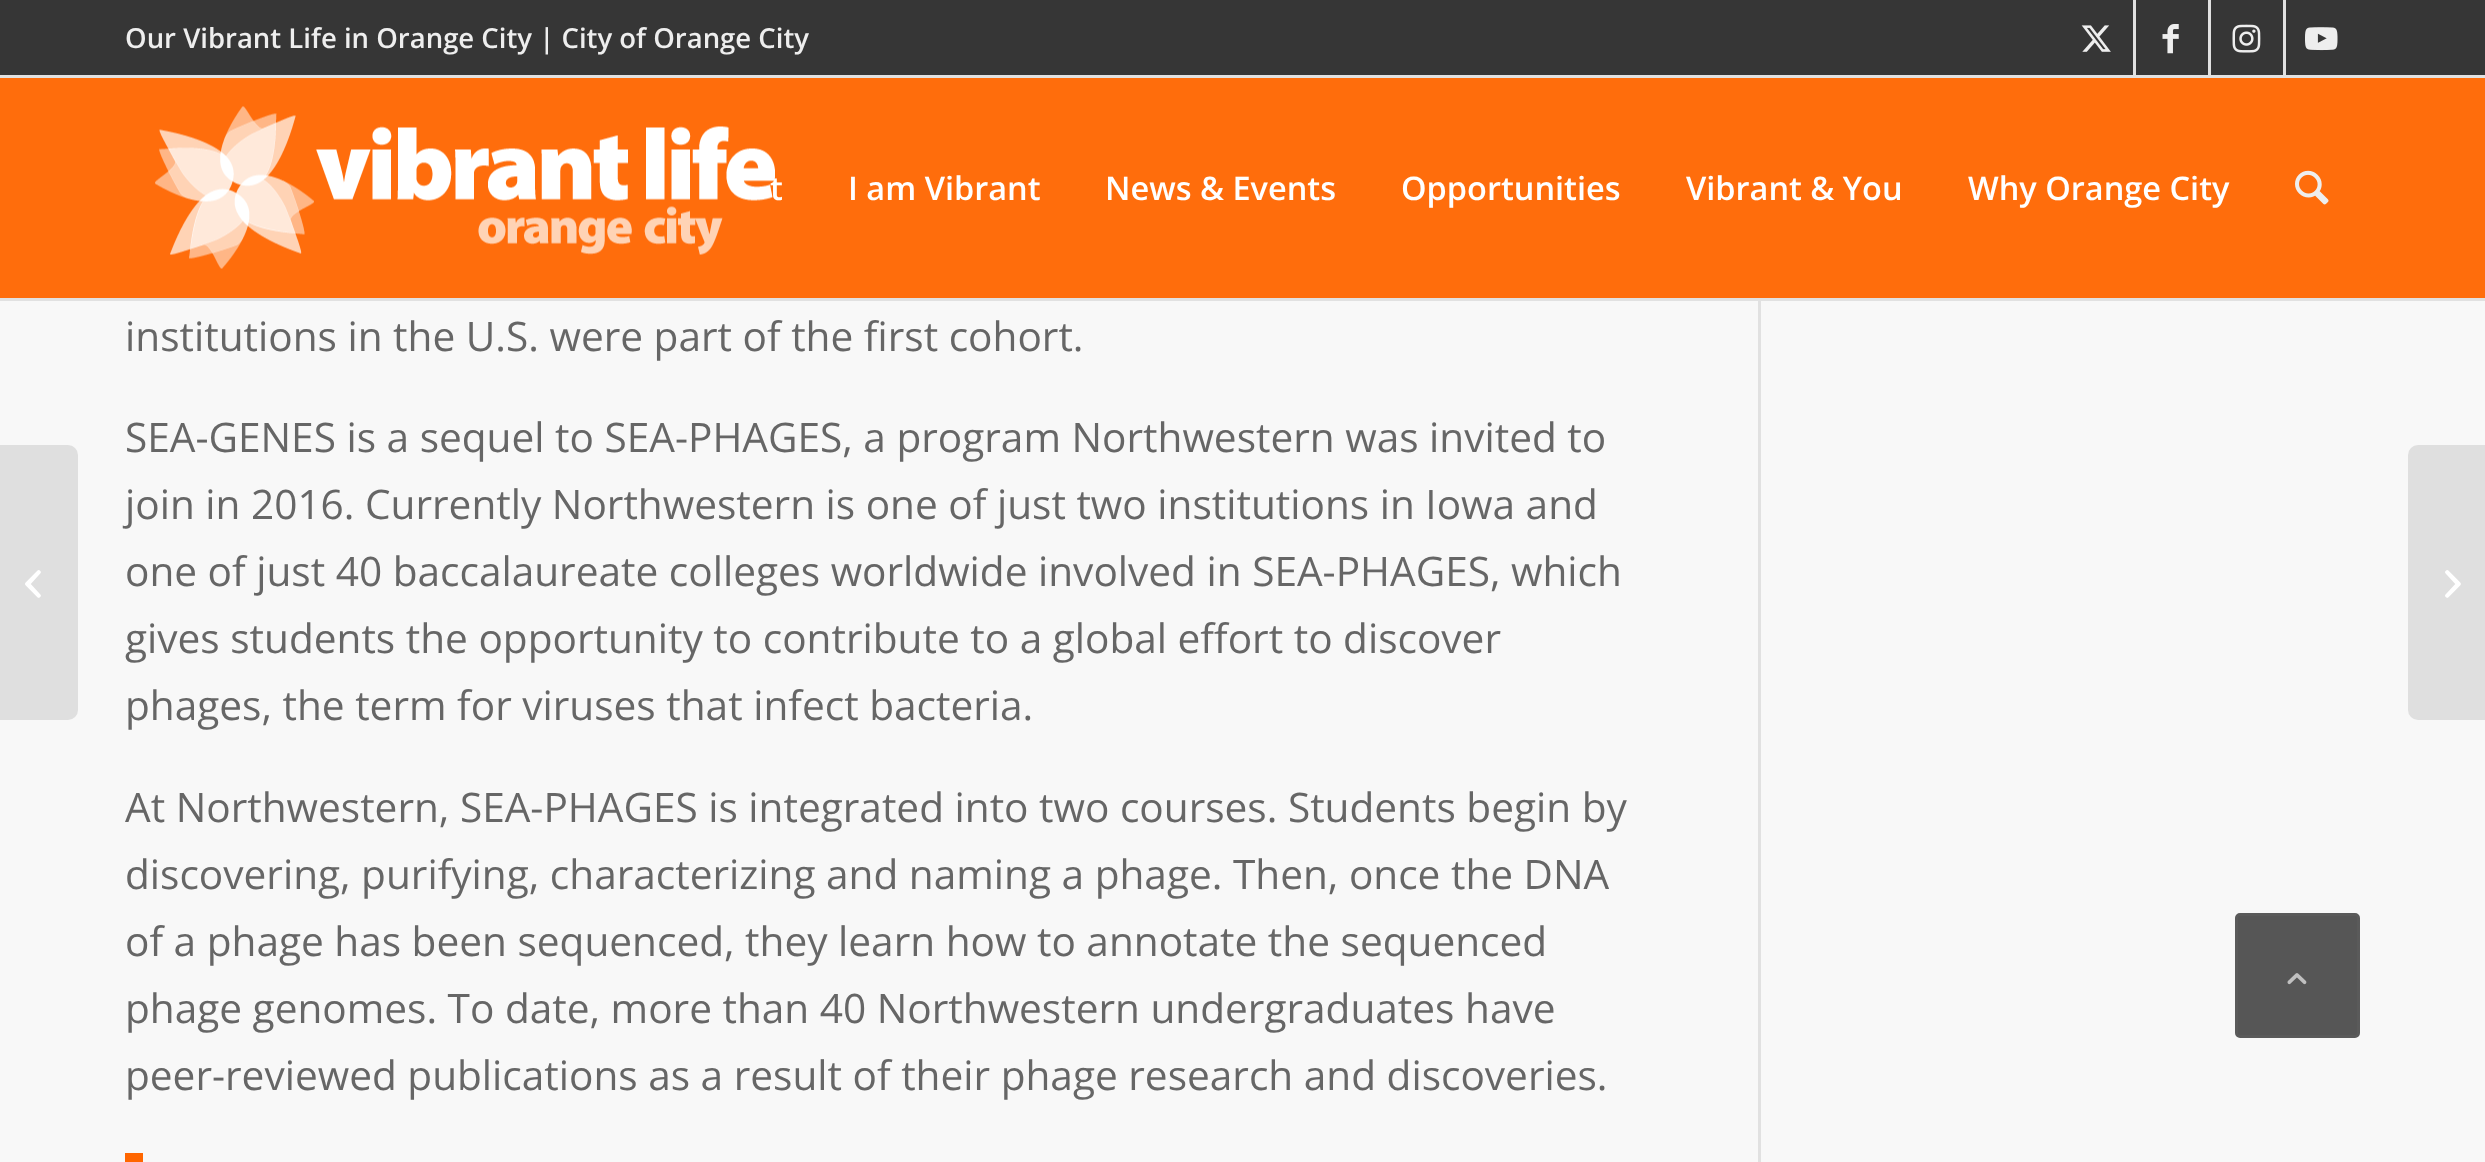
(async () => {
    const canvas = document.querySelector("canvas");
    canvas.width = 2485;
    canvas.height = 1162;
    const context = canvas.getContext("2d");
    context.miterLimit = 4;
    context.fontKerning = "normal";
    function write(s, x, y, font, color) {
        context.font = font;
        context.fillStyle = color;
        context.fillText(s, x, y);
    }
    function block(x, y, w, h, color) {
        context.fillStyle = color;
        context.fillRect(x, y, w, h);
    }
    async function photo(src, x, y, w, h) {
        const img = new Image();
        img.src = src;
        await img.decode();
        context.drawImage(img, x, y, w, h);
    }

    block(0, 0, 2485, 1162, "rgb(248, 248, 248)");
    block(0, 0, 2485, 75, "rgb(54, 54, 54)");
    block(0, 75, 2485, 3, "rgb(225, 225, 225)");
    write("Our Vibrant Life in Orange City | City of Orange City", 125, 48, "600 27.5px Open Sans", "rgb(238, 238, 238)");
    block(2133, 0, 3, 75, "rgb(225, 225, 225)");
    await photo("media/1.png", 2081, 25, 30, 27);
    block(2208, 0, 3, 75, "rgb(225, 225, 225)");
    await photo("media/2.png", 2162, 24, 17, 30);
    block(2283, 0, 3, 75, "rgb(225, 225, 225)");
    await photo("media/3.png", 2232, 24, 29, 29);
    await photo("media/4.png", 2305, 27, 33, 24);
    block(1758, 298, 3, 2, "rgb(254, 108, 11)");
    block(0, 298, 2485, 3, "rgb(225, 225, 225)");
    block(0, 78, 2485, 220, "rgb(255, 109, 12)");
    await photo("media/5.png", 155, 106, 620, 163);
    write("t", 770, 200, "600 32.5px Open Sans", "rgb(255, 255, 255)");
    write("I am Vibrant", 848, 200, "600 32.5px Open Sans", "rgb(255, 255, 255)");
    write("News & Events", 1105, 200, "600 32.5px Open Sans", "rgb(255, 255, 255)");
    write("Opportunities", 1401, 200, "600 32.5px Open Sans", "rgb(255, 255, 255)");
    write("Vibrant & You", 1686, 200, "600 32.5px Open Sans", "rgb(255, 255, 255)");
    write("Why Orange City", 1968, 200, "600 32.5px Open Sans", "rgb(255, 255, 255)");
    await photo("media/6.png", 2295, 170, 34, 35);
    context.fillStyle = "rgb(223, 223, 223)";
    context.beginPath();
    context.roundRect(0, 445, 78, 275, [0, 10, 10, 0]);
    context.fill();
    await photo("media/7.png", 25, 570, 16, 28);
    block(1758, 301, 3, 861, "rgb(225, 225, 225)");
    write("institutions in the U.S. were part of the first cohort.", 125, 351, "40.6px Open Sans", "rgb(102, 102, 102)");
    write("SEA-GENES is a sequel to SEA-PHAGES, a program Northwestern was invited to", 125, 452, "40.6px Open Sans", "rgb(102, 102, 102)");
    write("join in 2016. Currently Northwestern is one of just two institutions in Iowa and", 125, 519, "40.6px Open Sans", "rgb(102, 102, 102)");
    write("one of just 40 baccalaureate colleges worldwide involved in SEA-PHAGES, which", 125, 586, "40.6px Open Sans", "rgb(102, 102, 102)");
    write("gives students the opportunity to contribute to a global effort to discover", 125, 653, "40.6px Open Sans", "rgb(102, 102, 102)");
    write("phages, the term for viruses that infect bacteria.", 125, 720, "40.6px Open Sans", "rgb(102, 102, 102)");
    write("At Northwestern, SEA-PHAGES is integrated into two courses. Students begin by", 125, 822, "40.6px Open Sans", "rgb(102, 102, 102)");
    write("discovering, purifying, characterizing and naming a phage. Then, once the DNA", 125, 889, "40.6px Open Sans", "rgb(102, 102, 102)");
    write("of a phage has been sequenced, they learn how to annotate the sequenced", 125, 956, "40.6px Open Sans", "rgb(102, 102, 102)");
    write("phage genomes. To date, more than 40 Northwestern undergraduates have", 125, 1023, "40.6px Open Sans", "rgb(102, 102, 102)");
    write("peer-reviewed publications as a result of their phage research and discoveries.", 125, 1090, "40.6px Open Sans", "rgb(102, 102, 102)");
    block(125, 1153, 18, 9, "rgb(255, 102, 0)");
    context.fillStyle = "rgb(223, 223, 223)";
    context.beginPath();
    context.roundRect(2408, 445, 77, 275, [10, 0, 0, 10]);
    context.fill();
    await photo("media/8.png", 2445, 570, 16, 28);
    context.fillStyle = "rgb(86, 86, 86)";
    context.beginPath();
    context.roundRect(2236.5, 914.5, 122, 122, 3.5);
    context.fill();
    context.strokeStyle = "rgb(90, 90, 90)";
    context.lineWidth = 3;
    context.stroke();
    await photo("media/9.png", 2287, 973, 20, 12);
})();
